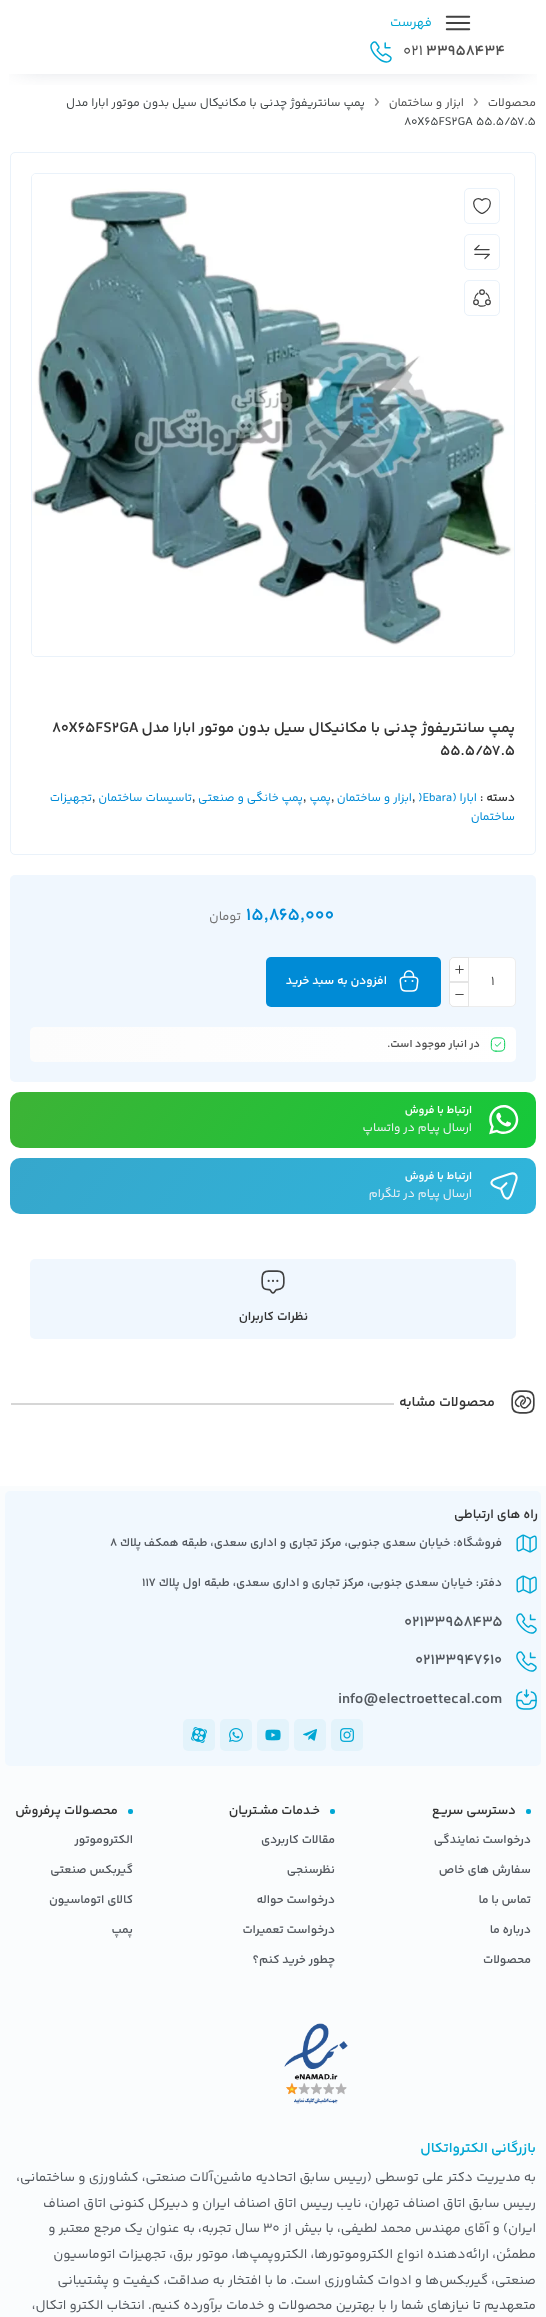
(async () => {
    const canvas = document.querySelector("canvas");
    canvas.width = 546;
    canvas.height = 2317;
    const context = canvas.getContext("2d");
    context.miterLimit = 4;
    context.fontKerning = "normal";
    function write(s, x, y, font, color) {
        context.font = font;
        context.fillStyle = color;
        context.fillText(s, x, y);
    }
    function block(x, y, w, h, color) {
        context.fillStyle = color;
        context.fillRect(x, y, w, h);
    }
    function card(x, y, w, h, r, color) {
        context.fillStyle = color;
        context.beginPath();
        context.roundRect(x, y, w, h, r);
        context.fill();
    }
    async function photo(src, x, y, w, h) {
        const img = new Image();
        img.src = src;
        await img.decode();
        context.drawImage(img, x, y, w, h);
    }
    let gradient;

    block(0, 0, 546, 2317, "rgb(255, 255, 255)");
    context.save();
    context.beginPath();
    context.rect(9, 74, 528, 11);
    context.clip();
    context.fillStyle = "rgba(78, 89, 117, 0.58)";
    context.filter = "blur(14.5px)";
    context.beginPath();
    context.rect(19, 19, 508, 40);
    context.fill();
    context.filter = "none";
    context.restore();
    await photo("media/1.png", 445, 15, 26, 16);
    context.direction = "rtl";
    write("فهرست", 432, 26, "13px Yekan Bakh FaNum", "rgb(0, 167, 212)");
    context.direction = "ltr";
    write("33958434", 426, 55, "600 15px Yekan Bakh FaNum", "rgb(80, 80, 80)");
    write("021", 403, 55, "15px Yekan Bakh FaNum", "rgb(80, 80, 80)");
    await photo("media/2.png", 370, 41, 22, 22);
    context.direction = "rtl";
    write("محصولات", 536, 106, "12px Yekan Bakh FaNum", "rgb(80, 80, 80)");
    context.direction = "ltr";
    write("›", 473, 107, "19px Noto Sans", "rgb(136, 136, 136)");
    context.direction = "rtl";
    write("ابزار و ساختمان", 464, 106, "12px Yekan Bakh FaNum", "rgb(80, 80, 80)");
    context.direction = "ltr";
    write("›", 374, 107, "19px Noto Sans", "rgb(136, 136, 136)");
    context.direction = "rtl";
    write("پمپ سانتریفوژ چدنی با مکانیکال سیل بدون موتور ابارا مدل", 365, 106, "12px Yekan Bakh FaNum", "rgb(65, 70, 72)");
    context.direction = "ltr";
    write("80X65FS2GA 55.5/57.5", 404, 125, "12px Yekan Bakh FaNum", "rgb(65, 70, 72)");
    context.beginPath();
    context.roundRect(10.5, 152.5, 525, 702, 4.5);
    context.strokeStyle = "rgb(234, 242, 250)";
    context.stroke();
    context.beginPath();
    context.roundRect(31.5, 173.5, 483, 483, 4.5);
    context.stroke();
    await photo("media/3.png", 32, 174, 482, 482);
    context.beginPath();
    context.roundRect(464.5, 188.5, 35, 35, 4.5);
    context.stroke();
    await photo("media/4.png", 473, 198, 18, 16);
    context.beginPath();
    context.roundRect(464.5, 234.5, 35, 35, 4.5);
    context.stroke();
    await photo("media/5.png", 474, 244, 16, 16);
    context.beginPath();
    context.roundRect(464.5, 280.5, 35, 35, 4.5);
    context.stroke();
    await photo("media/6.png", 473, 289, 18, 18);
    context.direction = "rtl";
    write("پمپ سانتریفوژ چدنی با مکانیکال سیل بدون موتور ابارا مدل", 515, 732, "600 15px Yekan Bakh FaNum", "rgb(51, 51, 51)");
    context.direction = "ltr";
    write("80X65FS2GA", 52, 732, "600 15px Yekan Bakh FaNum", "rgb(51, 51, 51)");
    write("55.5/57.5", 440, 755, "600 15px Yekan Bakh FaNum", "rgb(51, 51, 51)");
    context.direction = "rtl";
    write("دسته :", 515, 801, "600 12px Yekan Bakh FaNum", "rgb(51, 51, 51)");
    write("ابارا (", 477, 801, "12px Yekan Bakh FaNum", "rgb(0, 139, 214)");
    context.direction = "ltr";
    write(")Ebara", 418, 801, "12px Yekan Bakh FaNum", "rgb(0, 139, 214)");
    write(",", 412, 801, "600 12px Yekan Bakh FaNum", "rgb(51, 51, 51)");
    context.direction = "rtl";
    write("ابزار و ساختمان", 412, 801, "12px Yekan Bakh FaNum", "rgb(0, 139, 214)");
    context.direction = "ltr";
    write(",", 331, 801, "600 12px Yekan Bakh FaNum", "rgb(51, 51, 51)");
    context.direction = "rtl";
    write("پمپ", 331, 801, "12px Yekan Bakh FaNum", "rgb(0, 139, 214)");
    context.direction = "ltr";
    write(",", 303, 801, "600 12px Yekan Bakh FaNum", "rgb(51, 51, 51)");
    context.direction = "rtl";
    write("پمپ خانگی و صنعتی", 303, 801, "12px Yekan Bakh FaNum", "rgb(0, 139, 214)");
    context.direction = "ltr";
    write(",", 192, 801, "600 12px Yekan Bakh FaNum", "rgb(51, 51, 51)");
    context.direction = "rtl";
    write("تاسیسات ساختمان", 192, 801, "12px Yekan Bakh FaNum", "rgb(0, 139, 214)");
    context.direction = "ltr";
    write(",", 92, 801, "600 12px Yekan Bakh FaNum", "rgb(51, 51, 51)");
    context.direction = "rtl";
    write("تجهیزات", 92, 801, "12px Yekan Bakh FaNum", "rgb(0, 139, 214)");
    write("ساختمان", 515, 820, "12px Yekan Bakh FaNum", "rgb(0, 139, 214)");
    card(10, 875, 526, 207, 5, "rgb(240, 247, 254)");
    context.letterSpacing = "-0.25px";
    context.direction = "ltr";
    write("۱۵,۸۶۵,۰۰۰", 246, 920, "600 18px Yekan Bakh FaNum", "rgb(0, 139, 214)");
    context.direction = "rtl";
    write("تومان", 241, 920, "13px Yekan Bakh FaNum", "rgb(115, 115, 115)");
    context.fillStyle = "rgb(255, 255, 255)";
    context.beginPath();
    context.roundRect(449.5, 957.5, 66, 49, 4.5);
    context.fill();
    context.strokeStyle = "rgb(238, 238, 238)";
    context.stroke();
    context.letterSpacing = "0px";
    context.direction = "ltr";
    write("1", 491, 985, "13px Yekan Bakh FaNum", "rgb(80, 80, 80)");
    context.fillStyle = "rgb(255, 255, 255)";
    context.beginPath();
    context.roundRect(449, 957, 20, 25, [5, 0, 0, 0]);
    context.fill();
    context.beginPath();
    context.roundRect(449.5, 957.5, 19, 24, [4.5, 0, 0, 0]);
    context.strokeStyle = "rgba(0, 0, 0, 0.1)";
    context.stroke();
    await photo("media/7.png", 455, 965, 9, 9);
    context.beginPath();
    context.roundRect(449, 982, 20, 25, [0, 0, 0, 5]);
    context.fill();
    context.beginPath();
    context.roundRect(449.5, 982.5, 19, 24, [0, 0, 0, 4.5]);
    context.stroke();
    await photo("media/8.png", 455, 994, 9, 1);
    card(266, 957, 175, 50, 5, "rgb(0, 139, 214)");
    await photo("media/9.png", 399, 970, 20, 22);
    context.direction = "rtl";
    write("افزودن به سبد خرید", 387, 984, "600 12px Yekan Bakh FaNum", "rgb(255, 255, 255)");
    gradient = context.createLinearGradient(30, 1045, 516, 1045);
    gradient.addColorStop(0, "rgb(252, 252, 252)");
    gradient.addColorStop(1, "rgb(255, 255, 255)");
    context.fillStyle = gradient;
    context.beginPath();
    context.roundRect(30, 1027, 486, 35, 5);
    context.fill();
    await photo("media/10.png", 490, 1037, 16, 15);
    write("در انبار موجود است.", 480, 1047, "600 11px Yekan Bakh FaNum", "rgb(80, 80, 80)");
    gradient = context.createLinearGradient(467, 1251, 79, 989);
    gradient.addColorStop(0, "rgb(21, 201, 58)");
    gradient.addColorStop(1, "rgb(61, 179, 54)");
    context.fillStyle = gradient;
    context.beginPath();
    context.roundRect(10, 1092, 526, 56, 10);
    context.fill();
    await photo("media/11.png", 489, 1105, 30, 30);
    write("ارتباط با فروش", 472, 1113, "600 11px Yekan Bakh FaNum", "rgb(255, 255, 255)");
    write("ارسال پیام در واتساپ", 472, 1131, "12px Yekan Bakh FaNum", "rgb(239, 241, 246)");
    gradient = context.createLinearGradient(467, 1317, 79, 1055);
    gradient.addColorStop(0, "rgb(47, 181, 219)");
    gradient.addColorStop(1, "rgb(54, 167, 204)");
    context.fillStyle = gradient;
    context.beginPath();
    context.roundRect(10, 1158, 526, 56, 10);
    context.fill();
    await photo("media/12.png", 490, 1172, 28, 28);
    write("ارتباط با فروش", 472, 1179, "600 11px Yekan Bakh FaNum", "rgb(255, 255, 255)");
    write("ارسال پیام در تلگرام", 472, 1197, "12px Yekan Bakh FaNum", "rgb(239, 241, 246)");
    card(30, 1259, 486, 80, 5, "rgb(240, 247, 254)");
    await photo("media/13.png", 261, 1270, 24, 24);
    write("نظرات کاربران", 308, 1320, "600 12.5px Yekan Bakh FaNum", "rgb(51, 51, 51)");
    await photo("media/14.png", 511, 1390, 24, 24);
    write("محصولات مشابه", 495, 1406, "600 14px Yekan Bakh FaNum", "rgb(51, 51, 51)");
    block(11, 1403, 383, 2, "rgb(214, 214, 214)");
    block(0, 1486, 546, 831, "rgb(250, 252, 253)");
    card(5, 1491, 536, 275, 5, "rgb(241, 248, 254)");
    write("راه های ارتباطی", 538, 1518, "600 13px Yekan Bakh FaNum", "rgb(51, 51, 51)");
    await photo("media/15.png", 516, 1534, 21, 19);
    write("فروشگاه: خيابان سعدى جنوبى، مركز تجارى و ادارى سعدى، طبقه همكف پلاك", 502, 1546, "600 12px Yekan Bakh FaNum", "rgb(84, 89, 95)");
    context.direction = "ltr";
    write("٨", 110, 1546, "600 12px Yekan Bakh FaNum", "rgb(84, 89, 95)");
    await photo("media/15.png", 516, 1575, 21, 19);
    context.direction = "rtl";
    write("دفتر: خيابان سعدى جنوبى، مركز تجارى و ادارى سعدى، طبقه اول پلاك", 502, 1586, "600 12px Yekan Bakh FaNum", "rgb(84, 89, 95)");
    context.direction = "ltr";
    write("١١٧", 142, 1586, "600 12px Yekan Bakh FaNum", "rgb(84, 89, 95)");
    await photo("media/16.png", 516, 1613, 21, 21);
    write("۰۲۱۳۳۹۵۸۴۳۵", 404, 1626, "600 15px Yekan Bakh FaNum", "rgb(84, 89, 95)");
    await photo("media/16.png", 516, 1651, 21, 21);
    write("۰۲۱۳۳۹۴۷۶۱۰", 415, 1664, "600 15px Yekan Bakh FaNum", "rgb(84, 89, 95)");
    await photo("media/17.png", 516, 1689, 21, 21);
    write("info@electroettecal.com", 338, 1703, "600 15px Yekan Bakh FaNum", "rgb(84, 89, 95)");
    card(331, 1719, 32, 32, 5, "rgb(227, 243, 251)");
    await photo("media/18.png", 340, 1728, 14, 14);
    card(294, 1719, 32, 32, 5, "rgb(227, 243, 251)");
    await photo("media/19.png", 303, 1729, 14, 12);
    card(257, 1719, 32, 32, 5, "rgb(227, 243, 251)");
    await photo("media/20.png", 265, 1729, 16, 12);
    card(220, 1719, 32, 32, 5, "rgb(227, 243, 251)");
    await photo("media/21.png", 229, 1728, 14, 14);
    card(183, 1719, 32, 32, 5, "rgb(227, 243, 251)");
    await photo("media/22.png", 191, 1727, 16, 16);
    card(526, 1809, 5, 5, 2, "rgb(0, 167, 212)");
    context.direction = "rtl";
    write("دسترسی سریـع", 516, 1814, "600 13px Yekan Bakh FaNum", "rgb(51, 51, 51)");
    write("درخواست نمایندگی", 531, 1843, "600 12px Yekan Bakh FaNum", "rgb(84, 89, 95)");
    write("سفارش های خاص", 531, 1873, "600 12px Yekan Bakh FaNum", "rgb(84, 89, 95)");
    write("تماس با ما", 531, 1903, "600 12px Yekan Bakh FaNum", "rgb(84, 89, 95)");
    write("درباره ما", 531, 1933, "600 12px Yekan Bakh FaNum", "rgb(84, 89, 95)");
    write("محصولات", 531, 1963, "600 12px Yekan Bakh FaNum", "rgb(84, 89, 95)");
    card(330, 1809, 5, 5, 2, "rgb(0, 167, 212)");
    write("خـدمات مشـتریان", 320, 1814, "600 13px Yekan Bakh FaNum", "rgb(51, 51, 51)");
    write("مقالات کاربردی", 335, 1843, "600 12px Yekan Bakh FaNum", "rgb(84, 89, 95)");
    write("نظرسنجی", 335, 1873, "600 12px Yekan Bakh FaNum", "rgb(84, 89, 95)");
    write("درخواست حواله", 335, 1903, "600 12px Yekan Bakh FaNum", "rgb(84, 89, 95)");
    write("درخواست تعمیرات", 335, 1933, "600 12px Yekan Bakh FaNum", "rgb(84, 89, 95)");
    write("چطور خرید کنم؟", 335, 1963, "600 12px Yekan Bakh FaNum", "rgb(84, 89, 95)");
    card(128, 1809, 5, 5, 2, "rgb(0, 167, 212)");
    write("محصـولات پـرفروش", 118, 1814, "600 13px Yekan Bakh FaNum", "rgb(51, 51, 51)");
    write("الکتروموتور", 133, 1843, "600 12px Yekan Bakh FaNum", "rgb(84, 89, 95)");
    write("گیربکس صنعتی", 133, 1873, "600 12px Yekan Bakh FaNum", "rgb(84, 89, 95)");
    write("کالای اتوماسیون", 133, 1903, "600 12px Yekan Bakh FaNum", "rgb(84, 89, 95)");
    write("پمپ", 133, 1933, "600 12px Yekan Bakh FaNum", "rgb(84, 89, 95)");
    await photo("media/23.png", 284, 2023, 64, 81);
    write("بازرگانی الکترواتکال", 536, 2152, "600 14px Yekan Bakh FaNum", "rgb(0, 167, 212)");
    write("به مدیریت دکتر علی توسطی (رییس سابق اتحادیه ماشین‌آلات صنعتی، کشاورزی و ساختمانی،", 536, 2181, "13.5px Yekan Bakh FaNum", "rgb(84, 89, 95)");
    write("رییس سابق اتاق اصناف تهران، نایب رییس اتاق اصناف ایران و دبیرکل کنونی اتاق اصناف", 536, 2207, "13.5px Yekan Bakh FaNum", "rgb(84, 89, 95)");
    write("ایران) و آقای مهندس محمد لطیفی، با بیش از", 536, 2232, "13.5px Yekan Bakh FaNum", "rgb(84, 89, 95)");
    context.direction = "ltr";
    write("۳۰", 263, 2232, "13.5px Yekan Bakh FaNum", "rgb(84, 89, 95)");
    context.direction = "rtl";
    write("سال تجربه، به عنوان یک مرجع معتبر و", 260, 2232, "13.5px Yekan Bakh FaNum", "rgb(84, 89, 95)");
    write("مطمئن، ارائه‌دهنده انواع الکتروموتورها، الکتروپمپ‌ها، موتور برق، تجهیزات اتوماسیون", 536, 2258, "13.5px Yekan Bakh FaNum", "rgb(84, 89, 95)");
    write("صنعتی، گیربکس‌ها و ادوات کشاورزی است. ما با افتخار به صداقت، کیفیت و پشتیبانی", 536, 2284, "13.5px Yekan Bakh FaNum", "rgb(84, 89, 95)");
    write("متعهدیم تا نیازهای شما را با بهترین محصولات و خدمات برآورده کنیم. انتخاب الکترو اتکال،", 536, 2309, "13.5px Yekan Bakh FaNum", "rgb(84, 89, 95)");
})();
